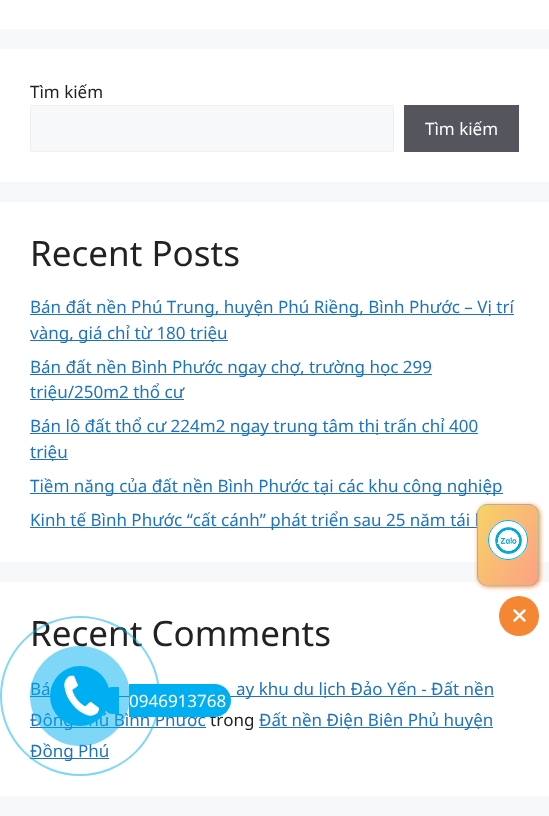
(async () => {
    const canvas = document.querySelector("canvas");
    canvas.width = 549;
    canvas.height = 816;
    const context = canvas.getContext("2d");
    context.miterLimit = 4;
    context.fontKerning = "none";
    function write(s, x, y, font, color) {
        context.font = font;
        context.fillStyle = color;
        context.fillText(s, x, y);
    }
    function block(x, y, w, h, color) {
        context.fillStyle = color;
        context.fillRect(x, y, w, h);
    }
    async function photo(src, x, y, w, h) {
        const img = new Image();
        img.src = src;
        await img.decode();
        context.drawImage(img, x, y, w, h);
    }
    let gradient;

    block(0, 0, 549, 816, "rgb(247, 248, 249)");
    block(0, 0, 549, 29, "rgb(255, 255, 255)");
    block(0, 49, 549, 133, "rgb(255, 255, 255)");
    write("Tìm kiếm", 30, 98, "17px Noto Sans", "rgb(34, 34, 34)");
    context.fillStyle = "rgb(247, 248, 249)";
    context.beginPath();
    context.rect(30.5, 105.5, 363, 46);
    context.fill();
    context.strokeStyle = "rgb(240, 240, 240)";
    context.stroke();
    block(404, 105, 115, 47, "rgb(85, 85, 94)");
    write("Tìm kiếm", 425, 135, "17px Noto Sans", "rgb(255, 255, 255)");
    block(0, 202, 549, 360, "rgb(255, 255, 255)");
    write("Recent Posts", 30, 266, "35px Noto Sans", "rgb(34, 34, 34)");
    block(30, 314, 484, 1, "rgb(30, 115, 190)");
    write("Bán đất nền Phú Trung, huyện Phú Riềng, Bình Phước – Vị trí", 30, 313, "17px Noto Sans", "rgb(30, 115, 190)");
    block(30, 340, 198, 1, "rgb(30, 115, 190)");
    write("vàng, giá chỉ từ 180 triệu", 30, 339, "17px Noto Sans", "rgb(30, 115, 190)");
    block(30, 374, 402, 1, "rgb(30, 115, 190)");
    write("Bán đất nền Bình Phước ngay chợ, trường học 299", 30, 373, "17px Noto Sans", "rgb(30, 115, 190)");
    block(30, 399, 154, 1, "rgb(30, 115, 190)");
    write("triệu/250m2 thổ cư", 30, 398, "17px Noto Sans", "rgb(30, 115, 190)");
    block(30, 433, 448, 1, "rgb(30, 115, 190)");
    write("Bán lô đất thổ cư 224m2 ngay trung tâm thị trấn chỉ 400", 30, 432, "17px Noto Sans", "rgb(30, 115, 190)");
    block(30, 459, 38, 1, "rgb(30, 115, 190)");
    write("triệu", 30, 458, "17px Noto Sans", "rgb(30, 115, 190)");
    block(30, 493, 473, 1, "rgb(30, 115, 190)");
    write("Tiềm năng của đất nền Bình Phước tại các khu công nghiệp", 30, 492, "17px Noto Sans", "rgb(30, 115, 190)");
    block(30, 527, 447, 1, "rgb(30, 115, 190)");
    write("Kinh tế Bình Phước “cất cánh” phát triển sau 25 năm tái l", 30, 526, "17px Noto Sans", "rgb(30, 115, 190)");
    block(0, 582, 549, 214, "rgb(255, 255, 255)");
    write("Recent Comments", 30, 646, "35px Noto Sans", "rgb(34, 34, 34)");
    write("Bá", 30, 695, "17px Noto Sans", "rgb(30, 115, 190)");
    block(30, 696, 464, 1, "rgb(30, 115, 190)");
    write("ay khu du lịch Đảo Yến - Đất nền", 236, 695, "17px Noto Sans", "rgb(30, 115, 190)");
    block(30, 727, 176, 1, "rgb(30, 115, 190)");
    write("Đông Phú Bình Phước", 30, 726, "17px Noto Sans", "rgb(30, 115, 190)");
    write("trong", 210, 726, "17px Noto Sans", "rgb(34, 34, 34)");
    block(259, 727, 234, 1, "rgb(30, 115, 190)");
    write("Đất nền Điện Biên Phủ huyện", 259, 726, "17px Noto Sans", "rgb(30, 115, 190)");
    block(30, 758, 79, 1, "rgb(30, 115, 190)");
    write("Đồng Phú", 30, 757, "17px Noto Sans", "rgb(30, 115, 190)");
    context.fillStyle = "rgb(251, 133, 67)";
    context.filter = "blur(2px)";
    context.beginPath();
    context.roundRect(478, 505, 62, 82, 10);
    context.fill();
    context.filter = "none";
    context.save();
    context.beginPath();
    context.roundRect(477, 504, 62, 82, 10);
    context.clip();
    gradient = context.createLinearGradient(468, 442, 548, 488);
    gradient.addColorStop(0, "rgb(246, 211, 101)");
    gradient.addColorStop(1, "rgb(253, 160, 133)");
    context.fillStyle = gradient;
    context.fillRect(478, 504, 60, 1);
    gradient = context.createLinearGradient(408, 522, 488, 568);
    gradient.addColorStop(0, "rgb(246, 211, 101)");
    gradient.addColorStop(1, "rgb(253, 160, 133)");
    context.fillStyle = gradient;
    context.fillRect(477, 505, 1, 80);
    gradient = context.createLinearGradient(468, 522, 548, 568);
    gradient.addColorStop(0, "rgb(246, 211, 101)");
    gradient.addColorStop(1, "rgb(253, 160, 133)");
    context.fillStyle = gradient;
    context.fillRect(478, 505, 60, 80);
    gradient = context.createLinearGradient(528, 522, 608, 568);
    gradient.addColorStop(0, "rgb(246, 211, 101)");
    gradient.addColorStop(1, "rgb(253, 160, 133)");
    context.fillStyle = gradient;
    context.fillRect(538, 505, 1, 80);
    gradient = context.createLinearGradient(468, 602, 548, 648);
    gradient.addColorStop(0, "rgb(246, 211, 101)");
    gradient.addColorStop(1, "rgb(253, 160, 133)");
    context.fillStyle = gradient;
    context.fillRect(478, 585, 60, 1);
    context.restore();
    context.beginPath();
    context.roundRect(477.5, 504.5, 61, 81, 9.5);
    context.strokeStyle = "rgba(0, 175, 238, 0.29)";
    context.stroke();
    context.fillStyle = "rgb(255, 255, 255)";
    context.beginPath();
    context.arc(508, 540, 20, 0, Math.PI * 2);
    context.fill();
    await photo("media/1.png", 495, 527, 27, 27);
    context.beginPath();
    context.arc(508, 540, 19.5, 0, Math.PI * 2);
    context.strokeStyle = "rgb(0, 175, 238)";
    context.stroke();
    context.fillStyle = "rgb(245, 134, 52)";
    context.beginPath();
    context.arc(519, 616, 20, 0, Math.PI * 2);
    context.fill();
    await photo("media/2.png", 513, 609, 13, 13);
    context.beginPath();
    context.arc(80, 696, 79, 0, Math.PI * 2);
    context.strokeStyle = "rgba(0, 175, 242, 0.5)";
    context.lineWidth = 2;
    context.stroke();
    context.fillStyle = "rgba(0, 175, 242, 0.5)";
    context.beginPath();
    context.arc(80, 696, 50, 0, Math.PI * 2);
    context.fill();
    context.fillStyle = "rgb(0, 175, 242)";
    context.beginPath();
    context.arc(80, 696, 30, 0, Math.PI * 2);
    context.fill();
    await photo("media/3.png", 64, 675, 35, 41);
    context.beginPath();
    context.roundRect(129, 684, 102, 33, [0, 16.5, 16.5, 0]);
    context.fill();
    write("0946913768", 129, 707, "17px Noto Sans", "rgb(255, 255, 255)");
    context.fillStyle = "rgb(0, 175, 242)";
    context.beginPath();
    context.roundRect(105, 687, 14, 27, [7, 0, 0, 7]);
    context.fill();
})();
